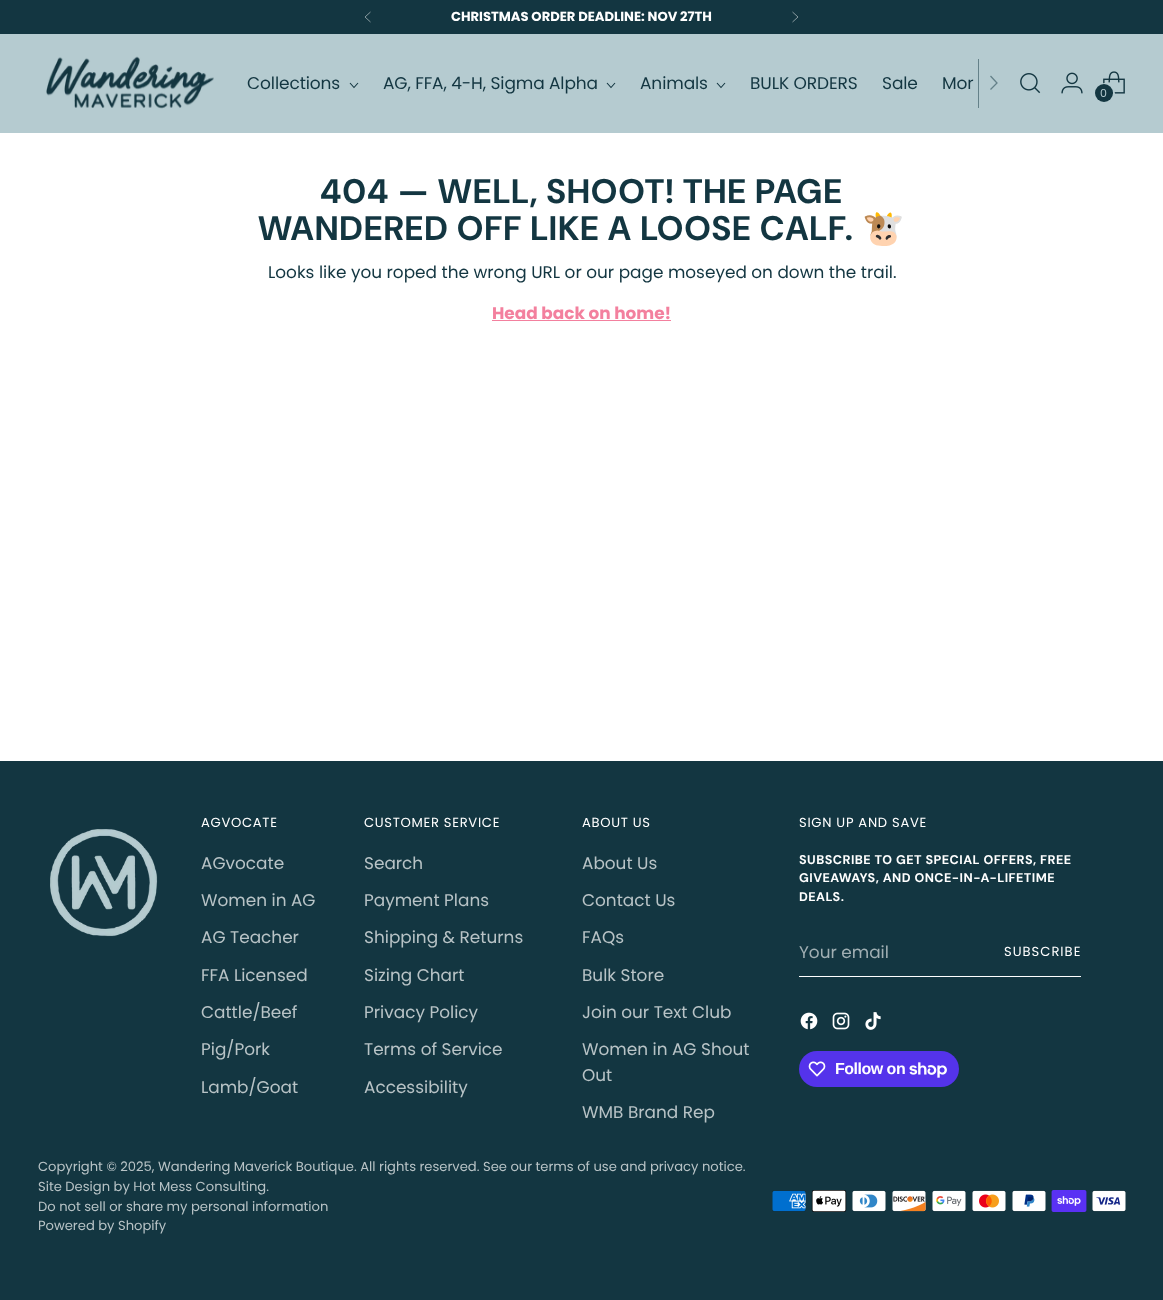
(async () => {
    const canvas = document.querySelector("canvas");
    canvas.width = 1163;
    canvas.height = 1300;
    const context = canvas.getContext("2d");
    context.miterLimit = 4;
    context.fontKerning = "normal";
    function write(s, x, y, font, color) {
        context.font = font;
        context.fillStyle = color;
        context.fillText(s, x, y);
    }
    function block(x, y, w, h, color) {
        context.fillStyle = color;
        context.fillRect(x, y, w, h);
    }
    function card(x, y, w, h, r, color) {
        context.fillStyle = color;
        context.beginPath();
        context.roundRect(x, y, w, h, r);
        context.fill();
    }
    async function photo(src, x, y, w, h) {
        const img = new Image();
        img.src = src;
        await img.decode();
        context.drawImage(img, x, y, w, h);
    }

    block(0, 0, 1163, 1300, "rgb(255, 255, 255)");
    block(0, 0, 1163, 34, "rgb(19, 54, 65)");
    context.beginPath();
    context.moveTo(370.5, 12);
    context.lineTo(365, 17);
    context.lineTo(370.5, 22);
    context.strokeStyle = "rgb(137, 155, 160)";
    context.stroke();
    context.beginPath();
    context.moveTo(792.5, 22);
    context.lineTo(798, 17);
    context.lineTo(792.5, 12);
    context.stroke();
    write("CHRISTMAS ORDER DEADLINE: NOV 27TH", 451, 21, "bold 13.12px Poppins", "rgb(255, 255, 255)");
    block(0, 34, 1163, 99, "rgb(181, 203, 208)");
    await photo("media/1.png", 46, 56, 168, 53);
    context.letterSpacing = "-0.1px";
    write("Collections", 247, 89, "17px Poppins", "rgb(19, 54, 65)");
    context.beginPath();
    context.moveTo(350, 83);
    context.lineTo(354, 87.5);
    context.lineTo(358, 83);
    context.strokeStyle = "rgb(19, 54, 65)";
    context.lineWidth = 1.1;
    context.stroke();
    write("AG, FFA, 4-H, Sigma Alpha", 383, 89, "17px Poppins", "rgb(19, 54, 65)");
    context.beginPath();
    context.moveTo(607, 83);
    context.lineTo(611, 87.5);
    context.lineTo(615, 83);
    context.stroke();
    write("Animals", 640, 89, "17px Poppins", "rgb(19, 54, 65)");
    context.beginPath();
    context.moveTo(717, 83);
    context.lineTo(721, 87.5);
    context.lineTo(725, 83);
    context.stroke();
    write("BULK ORDERS", 750, 89, "17px Poppins", "rgb(19, 54, 65)");
    write("Sale", 882, 89, "17px Poppins", "rgb(19, 54, 65)");
    write("Mor", 942, 89, "17px Poppins", "rgb(19, 54, 65)");
    block(978, 59, 1, 49, "rgb(100, 129, 137)");
    context.beginPath();
    context.moveTo(990.5, 89.5);
    context.lineTo(997, 83);
    context.lineTo(990.5, 76);
    context.strokeStyle = "rgb(100, 129, 137)";
    context.lineWidth = 1.3;
    context.stroke();
    await photo("media/2.png", 1020, 73, 21, 21);
    await photo("media/3.png", 1061, 72, 22, 22);
    await photo("media/4.png", 1103, 71, 22, 23);
    context.beginPath();
    context.arc(1104.5, 93.5, 9.5, 0, Math.PI * 2);
    context.strokeStyle = "rgb(181, 203, 208)";
    context.lineWidth = 2;
    context.stroke();
    context.fillStyle = "rgb(19, 54, 65)";
    context.beginPath();
    context.arc(1104, 93, 9, 0, Math.PI * 2);
    context.fill();
    context.letterSpacing = "0px";
    write("0", 1100, 97, "11px Poppins", "rgb(181, 203, 208)");
    context.letterSpacing = "0.85px";
    write("404 — WELL, SHOOT! THE PAGE", 320, 203, "bold 34.1px DM Sans", "rgb(19, 54, 65)");
    write("WANDERED OFF LIKE A LOOSE CALF.", 258, 240, "bold 34.1px DM Sans", "rgb(19, 54, 65)");
    write("🐮", 862, 240, "bold 34.1px Noto Color Emoji", "rgb(19, 54, 65)");
    context.letterSpacing = "0px";
    write("Looks like you roped the wrong URL or our page moseyed on down the trail.", 268, 278, "16.9px Poppins", "rgb(19, 54, 65)");
    write("Head back on home!", 492, 319, "bold 16.9px Poppins", "rgb(243, 128, 158)");
    block(492, 320, 179, 1, "rgb(243, 128, 158)");
    block(0, 761, 1163, 539, "rgb(19, 54, 65)");
    await photo("media/5.png", 50, 829, 108, 108);
    context.letterSpacing = "0.7px";
    write("AGVOCATE", 201, 827, "13.12px Poppins", "rgb(255, 255, 255)");
    context.letterSpacing = "0px";
    write("AGvocate", 201, 869, "16.9px Poppins", "rgb(184, 195, 198)");
    write("Women in AG", 201, 906, "16.9px Poppins", "rgb(184, 195, 198)");
    write("AG Teacher", 201, 943, "16.9px Poppins", "rgb(184, 195, 198)");
    write("FFA Licensed", 201, 981, "16.9px Poppins", "rgb(184, 195, 198)");
    write("Cattle/Beef", 201, 1018, "16.9px Poppins", "rgb(184, 195, 198)");
    write("Pig/Pork", 201, 1055, "16.9px Poppins", "rgb(184, 195, 198)");
    write("Lamb/Goat", 201, 1093, "16.9px Poppins", "rgb(184, 195, 198)");
    context.letterSpacing = "0.7px";
    write("CUSTOMER SERVICE", 364, 827, "13.12px Poppins", "rgb(255, 255, 255)");
    context.letterSpacing = "0px";
    write("Search", 364, 869, "16.9px Poppins", "rgb(184, 195, 198)");
    write("Payment Plans", 364, 906, "16.9px Poppins", "rgb(184, 195, 198)");
    write("Shipping & Returns", 364, 943, "16.9px Poppins", "rgb(184, 195, 198)");
    write("Sizing Chart", 364, 981, "16.9px Poppins", "rgb(184, 195, 198)");
    write("Privacy Policy", 364, 1018, "16.9px Poppins", "rgb(184, 195, 198)");
    write("Terms of Service", 364, 1055, "16.9px Poppins", "rgb(184, 195, 198)");
    write("Accessibility", 364, 1093, "16.9px Poppins", "rgb(184, 195, 198)");
    context.letterSpacing = "0.7px";
    write("ABOUT US", 582, 827, "13.12px Poppins", "rgb(255, 255, 255)");
    context.letterSpacing = "0px";
    write("About Us", 582, 869, "16.9px Poppins", "rgb(184, 195, 198)");
    write("Contact Us", 582, 906, "16.9px Poppins", "rgb(184, 195, 198)");
    write("FAQs", 582, 943, "16.9px Poppins", "rgb(184, 195, 198)");
    write("Bulk Store", 582, 981, "16.9px Poppins", "rgb(184, 195, 198)");
    write("Join our Text Club", 582, 1018, "16.9px Poppins", "rgb(184, 195, 198)");
    write("Women in AG Shout", 582, 1055, "16.9px Poppins", "rgb(184, 195, 198)");
    write("Out", 582, 1081, "16.9px Poppins", "rgb(184, 195, 198)");
    write("WMB Brand Rep", 582, 1118, "16.9px Poppins", "rgb(184, 195, 198)");
    context.letterSpacing = "0.7px";
    write("SIGN UP AND SAVE", 799, 827, "13.12px Poppins", "rgb(255, 255, 255)");
    context.letterSpacing = "0.45px";
    write("SUBSCRIBE TO GET SPECIAL OFFERS, FREE", 799, 864, "bold 12.6px 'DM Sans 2'", "rgb(255, 255, 255)");
    write("GIVEAWAYS, AND ONCE-IN-A-LIFETIME", 799, 882, "bold 12.6px 'DM Sans 2'", "rgb(255, 255, 255)");
    write("DEALS.", 799, 901, "bold 12.6px 'DM Sans 2'", "rgb(255, 255, 255)");
    block(799, 976, 282, 1, "rgb(255, 255, 255)");
    context.letterSpacing = "0px";
    write("Your email", 799, 958, "16.9px Poppins", "rgb(161, 175, 179)");
    context.letterSpacing = "1px";
    write("SUBSCRIBE", 1004, 956, "13.12px Poppins", "rgb(255, 255, 255)");
    await photo("media/6.png", 800, 1012, 18, 18);
    await photo("media/7.png", 832, 1012, 18, 18);
    await photo("media/8.png", 865, 1012, 16, 18);
    card(799, 1051, 160, 36, 18, "rgb(84, 51, 235)");
    await photo("media/9.png", 808, 1061, 18, 16);
    context.letterSpacing = "-0.5px";
    write("Follow on", 835, 1074, "bold 16px Liberation Sans", "rgb(255, 255, 255)");
    await photo("media/10.png", 909, 1062, 38, 16);
    context.letterSpacing = "0px";
    write("Copyright © 2025, Wandering Maverick Boutique. All rights reserved. See our terms of use and privacy notice.", 38, 1171, "13.12px Poppins", "rgb(184, 195, 198)");
    write("Site Design by Hot Mess Consulting.", 38, 1191, "13.12px Poppins", "rgb(184, 195, 198)");
    write("Do not sell or share my personal information", 38, 1211, "13.12px Poppins", "rgb(184, 195, 198)");
    write("Powered by Shopify", 38, 1230, "13.12px Poppins", "rgb(184, 195, 198)");
    await photo("media/11.png", 772, 1190, 34, 22);
    await photo("media/12.png", 811, 1190, 36, 22);
    await photo("media/13.png", 852, 1190, 34, 22);
    await photo("media/14.png", 892, 1190, 34, 22);
    await photo("media/15.png", 932, 1190, 34, 22);
    await photo("media/16.png", 972, 1190, 34, 22);
    await photo("media/17.png", 1012, 1190, 34, 22);
    await photo("media/18.png", 1051, 1190, 36, 22);
    await photo("media/19.png", 1092, 1190, 34, 22);
})();
